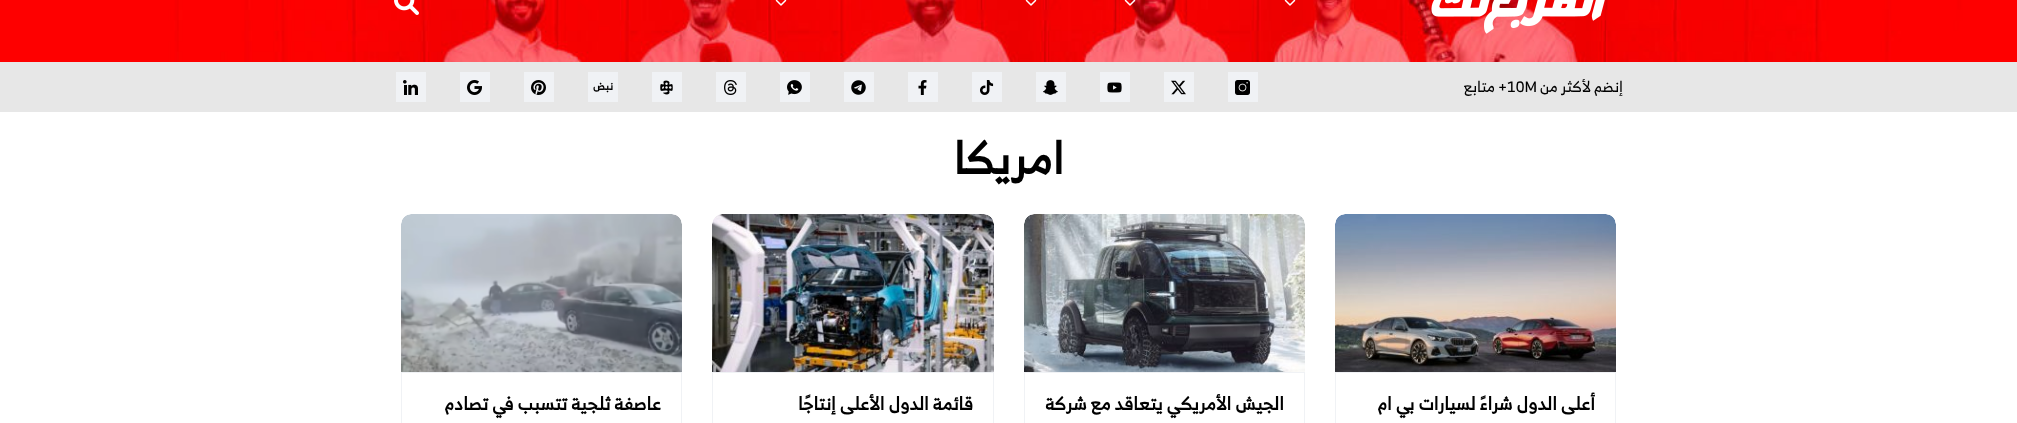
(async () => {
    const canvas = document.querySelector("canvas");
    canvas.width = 2017;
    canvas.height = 423;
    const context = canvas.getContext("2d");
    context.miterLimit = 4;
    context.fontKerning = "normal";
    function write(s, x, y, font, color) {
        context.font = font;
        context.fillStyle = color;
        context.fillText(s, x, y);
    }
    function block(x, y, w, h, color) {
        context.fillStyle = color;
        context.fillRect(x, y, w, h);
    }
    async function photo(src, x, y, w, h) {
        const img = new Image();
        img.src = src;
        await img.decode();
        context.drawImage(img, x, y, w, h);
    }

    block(0, 0, 2017, 423, "rgb(255, 255, 255)");
    await photo("media/1.png", 0, 0, 2017, 62);
    await photo("media/2.png", 1431, 0, 174, 34);
    await photo("media/3.png", 1284, 0, 12, 6);
    await photo("media/4.png", 1124, 0, 12, 6);
    await photo("media/5.png", 1025, 0, 12, 6);
    await photo("media/6.png", 775, 0, 12, 6);
    await photo("media/7.png", 394, 0, 25, 15);
    block(0, 62, 2017, 50, "rgb(231, 231, 231)");
    context.direction = "rtl";
    write("إنضم لأكثر من", 1623, 92, "15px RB", "rgb(0, 0, 0)");
    context.direction = "ltr";
    write("10M", 1507, 92, "15px RB", "rgb(0, 0, 0)");
    context.direction = "rtl";
    write("+ متابع", 1507, 92, "15px RB", "rgb(0, 0, 0)");
    block(1228, 72, 30, 30, "rgb(240, 242, 245)");
    await photo("media/8.png", 1235, 80, 15, 15);
    block(1164, 72, 30, 30, "rgb(240, 242, 245)");
    await photo("media/9.png", 1171, 80, 15, 15);
    block(1100, 72, 30, 30, "rgb(240, 242, 245)");
    await photo("media/10.png", 1107, 82, 15, 11);
    block(1036, 72, 30, 30, "rgb(240, 242, 245)");
    await photo("media/11.png", 1043, 80, 15, 15);
    block(972, 72, 30, 30, "rgb(240, 242, 245)");
    await photo("media/12.png", 980, 80, 14, 15);
    block(908, 72, 30, 30, "rgb(240, 242, 245)");
    await photo("media/13.png", 918, 80, 9, 15);
    block(844, 72, 30, 30, "rgb(240, 242, 245)");
    await photo("media/14.png", 851, 80, 15, 15);
    block(780, 72, 30, 30, "rgb(240, 242, 245)");
    await photo("media/15.png", 787, 80, 15, 15);
    block(716, 72, 30, 30, "rgb(240, 242, 245)");
    await photo("media/16.png", 724, 80, 13, 15);
    block(652, 72, 30, 30, "rgb(240, 242, 245)");
    await photo("media/17.png", 660, 80, 13, 15);
    block(588, 72, 30, 30, "rgb(240, 242, 245)");
    write("نبض", 613, 90, "bold 11px RB", "rgb(0, 0, 0)");
    block(524, 72, 30, 30, "rgb(240, 242, 245)");
    await photo("media/18.png", 531, 80, 15, 15);
    block(460, 72, 30, 30, "rgb(240, 242, 245)");
    await photo("media/19.png", 467, 80, 15, 15);
    block(396, 72, 30, 30, "rgb(240, 242, 245)");
    await photo("media/20.png", 403, 80, 15, 15);
    write("امريكا", 1064, 174, "bold 44px RB", "rgb(0, 0, 0)");
    await photo("media/21.png", 1335, 214, 281, 158);
    context.strokeStyle = "rgb(240, 242, 245)";
    context.strokeRect(1335.5, 372.5, 280, 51);
    write("أعلى الدول شراءً لسيارات بي ام", 1595, 410, "bold 18px RB", "rgb(0, 0, 0)");
    await photo("media/22.png", 1024, 214, 281, 158);
    context.strokeRect(1024.5, 372.5, 280, 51);
    write("الجيش الأمريكي يتعاقد مع شركة", 1284, 410, "bold 18px RB", "rgb(0, 0, 0)");
    await photo("media/23.png", 712, 214, 282, 158);
    context.strokeRect(712.5, 372.5, 281, 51);
    write("قائمة الدول الأعلى إنتاجًا", 973, 410, "bold 18px RB", "rgb(0, 0, 0)");
    await photo("media/24.png", 401, 214, 281, 158);
    context.strokeRect(401.5, 372.5, 280, 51);
    write("عاصفة ثلجية تتسبب في تصادم", 661, 410, "bold 18px RB", "rgb(0, 0, 0)");
})();
